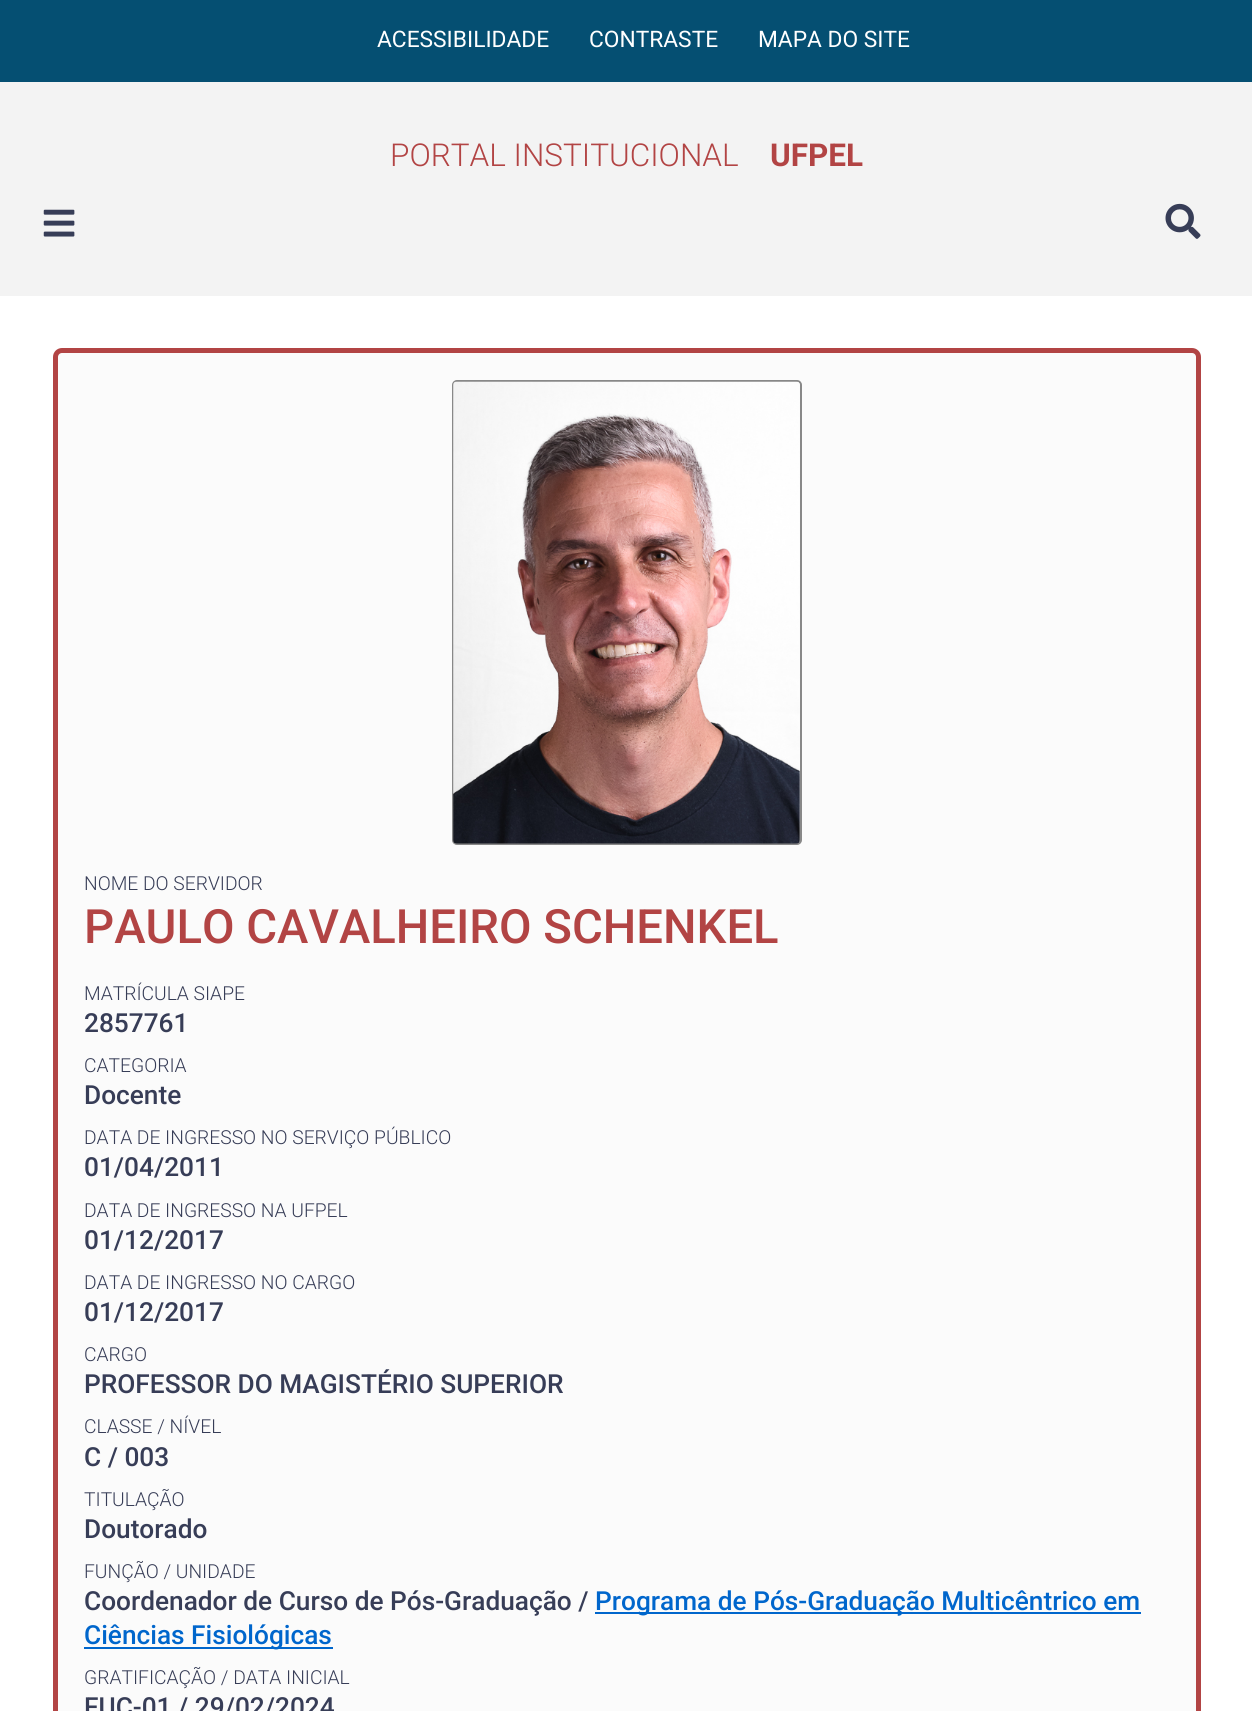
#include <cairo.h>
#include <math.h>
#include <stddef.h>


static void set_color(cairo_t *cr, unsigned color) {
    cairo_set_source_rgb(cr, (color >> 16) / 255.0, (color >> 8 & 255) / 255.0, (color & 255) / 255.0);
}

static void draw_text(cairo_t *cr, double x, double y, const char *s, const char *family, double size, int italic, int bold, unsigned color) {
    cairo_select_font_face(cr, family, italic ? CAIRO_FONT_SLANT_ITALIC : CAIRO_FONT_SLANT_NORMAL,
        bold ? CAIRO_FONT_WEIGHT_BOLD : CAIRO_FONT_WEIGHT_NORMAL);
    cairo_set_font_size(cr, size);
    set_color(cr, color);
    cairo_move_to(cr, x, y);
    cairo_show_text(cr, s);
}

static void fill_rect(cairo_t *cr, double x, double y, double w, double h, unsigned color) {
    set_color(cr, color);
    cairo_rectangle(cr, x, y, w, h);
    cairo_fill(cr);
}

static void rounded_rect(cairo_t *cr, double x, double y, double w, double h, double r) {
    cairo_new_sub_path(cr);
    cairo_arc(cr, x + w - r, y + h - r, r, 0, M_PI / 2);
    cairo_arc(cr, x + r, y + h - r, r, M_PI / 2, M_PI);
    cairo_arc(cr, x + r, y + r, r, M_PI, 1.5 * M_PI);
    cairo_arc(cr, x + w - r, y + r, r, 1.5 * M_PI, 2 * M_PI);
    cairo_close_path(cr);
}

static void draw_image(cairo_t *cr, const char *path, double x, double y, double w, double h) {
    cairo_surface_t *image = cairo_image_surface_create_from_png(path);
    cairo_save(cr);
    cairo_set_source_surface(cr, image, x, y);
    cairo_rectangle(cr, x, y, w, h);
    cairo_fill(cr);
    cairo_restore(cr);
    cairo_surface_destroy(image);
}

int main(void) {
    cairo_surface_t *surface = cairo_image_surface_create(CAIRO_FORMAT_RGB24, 1252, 1711);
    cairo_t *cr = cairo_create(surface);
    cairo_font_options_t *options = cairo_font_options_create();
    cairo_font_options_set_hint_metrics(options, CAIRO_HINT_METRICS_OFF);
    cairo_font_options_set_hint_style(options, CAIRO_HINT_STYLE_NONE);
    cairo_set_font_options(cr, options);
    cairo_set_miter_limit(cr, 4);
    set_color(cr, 0xFFFFFF);
    cairo_paint(cr);
    fill_rect(cr, 0, 0, 1252, 82, 0x054F72);
    draw_text(cr, 377, 47, "ACESSIBILIDADE", "Roboto", 22.75, 0, 0, 0xFFFFFF);
    draw_text(cr, 589, 47, "CONTRASTE", "Roboto", 22.75, 0, 0, 0xFFFFFF);
    draw_text(cr, 758, 47, "MAPA DO SITE", "Roboto", 22.75, 0, 0, 0xFFFFFF);
    fill_rect(cr, 0, 82, 1252, 214, 0xF3F3F3);
    draw_text(cr, 390, 166, "PORTAL INSTITUCIONAL", "Roboto Light", 31.5, 0, 0, 0xB24444);
    draw_text(cr, 770, 166, "UFPEL", "Roboto", 31.5, 0, 1, 0xB24444);
    draw_image(cr, "assets/img1.png", 43, 209, 32, 28);
    draw_image(cr, "assets/img2.png", 1165, 203, 36, 36);
    set_color(cr, 0xFBFBFB);
    rounded_rect(cr, 55.5, 350.5, 1143, 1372, 6.5);
    cairo_fill_preserve(cr);
    set_color(cr, 0xB24444);
    cairo_set_line_width(cr, 5);
    cairo_stroke(cr);
    rounded_rect(cr, 453, 381, 348, 463, 4);
    set_color(cr, 0x888888);
    cairo_set_line_width(cr, 2);
    cairo_stroke(cr);
    draw_image(cr, "assets/img3.png", 453, 381, 347, 463);
    draw_text(cr, 84, 890, "NOME DO SERVIDOR", "Roboto Light", 19.25, 0, 0, 0x373D57);
    draw_text(cr, 84, 943, "PAULO CAVALHEIRO SCHENKEL", "Roboto Medium", 47.25, 0, 0, 0xB24444);
    draw_text(cr, 84, 1000, "MATRÍCULA SIAPE", "Roboto Light", 19.25, 0, 0, 0x373D57);
    draw_text(cr, 84, 1032, "2857761", "Roboto Medium", 26.25, 0, 0, 0x373D57);
    draw_text(cr, 84, 1072, "CATEGORIA", "Roboto Light", 19.25, 0, 0, 0x373D57);
    draw_text(cr, 84, 1104, "Docente", "Roboto Medium", 26.25, 0, 0, 0x373D57);
    draw_text(cr, 84, 1144, "DATA DE INGRESSO NO SERVIÇO PÚBLICO", "Roboto Light", 19.25, 0, 0, 0x373D57);
    draw_text(cr, 84, 1176, "01/04/2011", "Roboto Medium", 26.25, 0, 0, 0x373D57);
    draw_text(cr, 84, 1217, "DATA DE INGRESSO NA UFPEL", "Roboto Light", 19.25, 0, 0, 0x373D57);
    draw_text(cr, 84, 1249, "01/12/2017", "Roboto Medium", 26.25, 0, 0, 0x373D57);
    draw_text(cr, 84, 1289, "DATA DE INGRESSO NO CARGO", "Roboto Light", 19.25, 0, 0, 0x373D57);
    draw_text(cr, 84, 1321, "01/12/2017", "Roboto Medium", 26.25, 0, 0, 0x373D57);
    draw_text(cr, 84, 1361, "CARGO", "Roboto Light", 19.25, 0, 0, 0x373D57);
    draw_text(cr, 84, 1393, "PROFESSOR DO MAGISTÉRIO SUPERIOR", "Roboto Medium", 26.25, 0, 0, 0x373D57);
    draw_text(cr, 84, 1433, "CLASSE / NÍVEL", "Roboto Light", 19.25, 0, 0, 0x373D57);
    draw_text(cr, 84, 1466, "C / 003", "Roboto Medium", 26.25, 0, 0, 0x373D57);
    draw_text(cr, 84, 1506, "TITULAÇÃO", "Roboto Light", 19.25, 0, 0, 0x373D57);
    draw_text(cr, 84, 1538, "Doutorado", "Roboto Medium", 26.25, 0, 0, 0x373D57);
    draw_text(cr, 84, 1578, "FUNÇÃO / UNIDADE", "Roboto Light", 19.25, 0, 0, 0x373D57);
    draw_text(cr, 84, 1610, "Coordenador de Curso de Pós-Graduação /", "Roboto Medium", 26.25, 0, 0, 0x373D57);
    fill_rect(cr, 595, 1612, 546, 2, 0x0066CC);
    draw_text(cr, 595, 1610, "Programa de Pós-Graduação Multicêntrico em", "Roboto Medium", 26.25, 0, 0, 0x0066CC);
    fill_rect(cr, 84, 1647, 249, 2, 0x0066CC);
    draw_text(cr, 84, 1644, "Ciências Fisiológicas", "Roboto Medium", 26.25, 0, 0, 0x0066CC);
    draw_text(cr, 84, 1684, "GRATIFICAÇÃO / DATA INICIAL", "Roboto Light", 19.25, 0, 0, 0x373D57);
    draw_text(cr, 84, 1716, "FUC-01 / 29/02/2024", "Roboto Medium", 26.25, 0, 0, 0x373D57);
    cairo_surface_write_to_png(surface, "output.png");
    cairo_font_options_destroy(options);
    cairo_destroy(cr);
    cairo_surface_destroy(surface);
    return 0;
}
